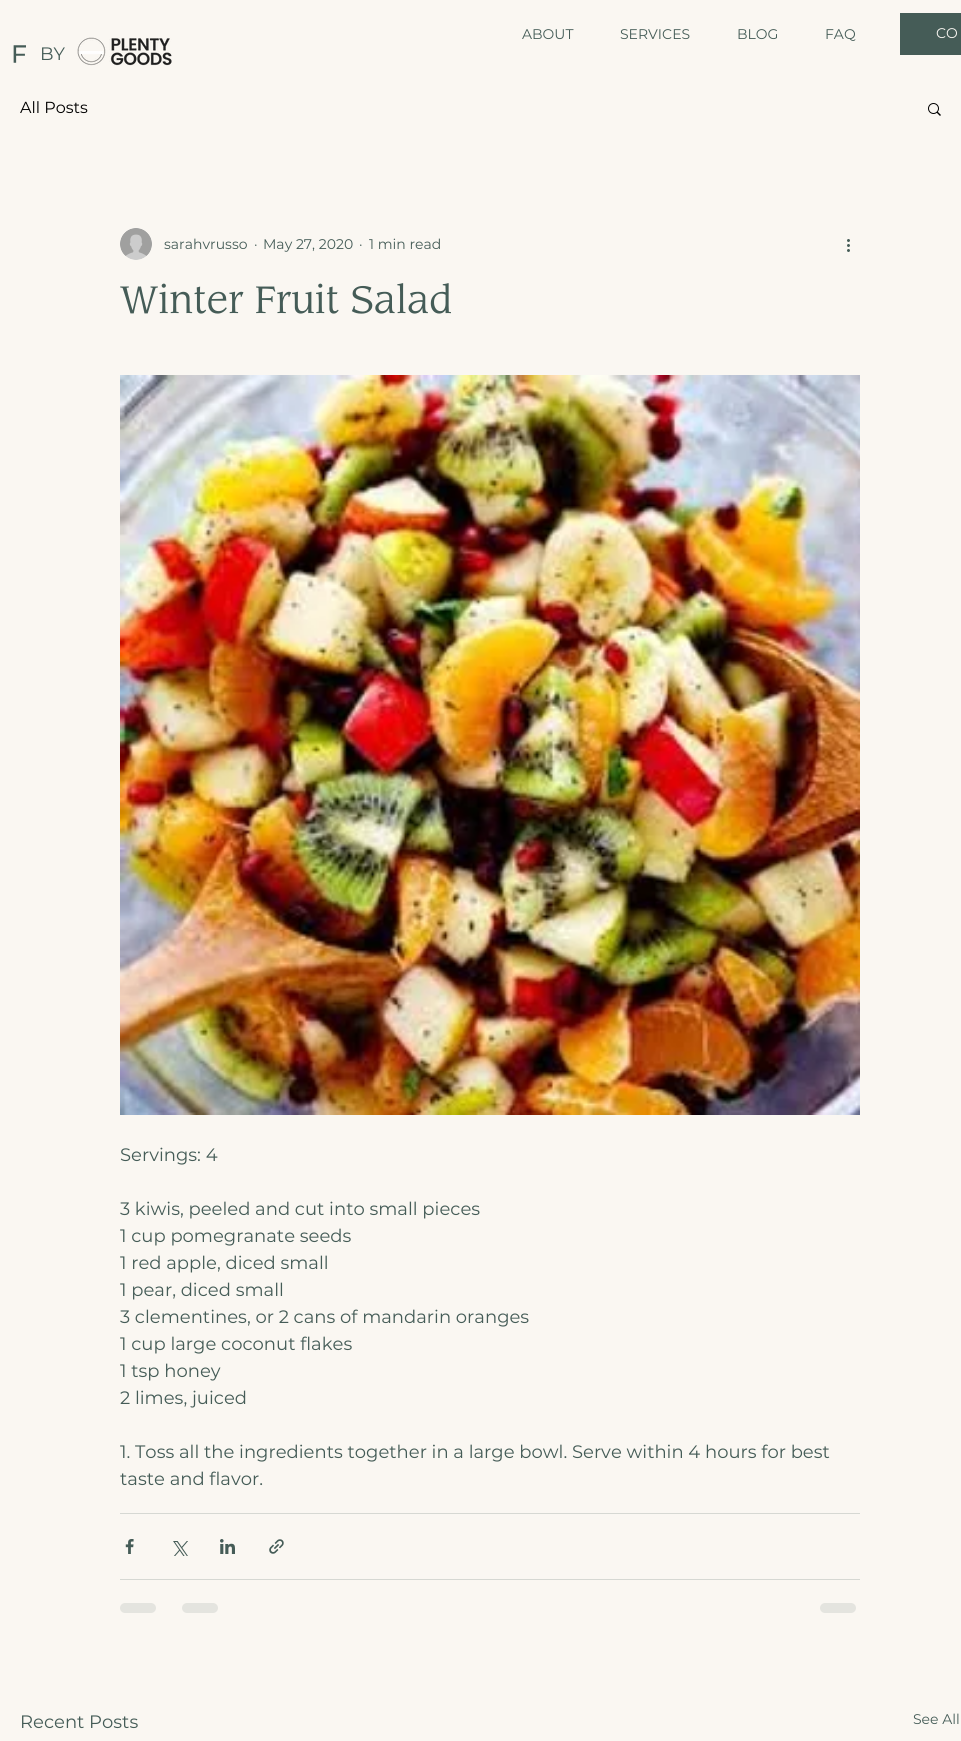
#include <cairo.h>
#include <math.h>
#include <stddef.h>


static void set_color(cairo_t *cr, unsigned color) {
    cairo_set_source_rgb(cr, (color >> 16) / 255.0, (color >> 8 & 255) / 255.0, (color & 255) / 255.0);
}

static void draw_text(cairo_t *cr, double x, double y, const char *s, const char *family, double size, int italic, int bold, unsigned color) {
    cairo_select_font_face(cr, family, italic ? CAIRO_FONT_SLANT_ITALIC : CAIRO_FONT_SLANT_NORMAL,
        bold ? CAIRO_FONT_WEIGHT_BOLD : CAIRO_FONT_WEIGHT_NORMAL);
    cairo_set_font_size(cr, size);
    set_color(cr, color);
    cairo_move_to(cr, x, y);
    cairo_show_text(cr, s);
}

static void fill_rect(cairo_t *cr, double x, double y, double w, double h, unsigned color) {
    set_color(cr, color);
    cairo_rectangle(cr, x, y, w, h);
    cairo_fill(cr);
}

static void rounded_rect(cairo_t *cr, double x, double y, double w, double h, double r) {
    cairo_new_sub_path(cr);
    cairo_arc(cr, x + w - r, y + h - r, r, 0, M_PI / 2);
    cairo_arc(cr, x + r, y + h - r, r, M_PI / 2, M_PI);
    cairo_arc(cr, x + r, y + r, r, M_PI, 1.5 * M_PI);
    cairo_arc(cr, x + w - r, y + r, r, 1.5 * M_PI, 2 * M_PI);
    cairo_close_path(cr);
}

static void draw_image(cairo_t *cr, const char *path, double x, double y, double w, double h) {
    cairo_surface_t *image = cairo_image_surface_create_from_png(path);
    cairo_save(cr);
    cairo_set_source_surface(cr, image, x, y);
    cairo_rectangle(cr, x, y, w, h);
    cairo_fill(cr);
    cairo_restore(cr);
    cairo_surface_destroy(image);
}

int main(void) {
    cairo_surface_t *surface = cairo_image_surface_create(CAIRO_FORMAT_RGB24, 961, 1741);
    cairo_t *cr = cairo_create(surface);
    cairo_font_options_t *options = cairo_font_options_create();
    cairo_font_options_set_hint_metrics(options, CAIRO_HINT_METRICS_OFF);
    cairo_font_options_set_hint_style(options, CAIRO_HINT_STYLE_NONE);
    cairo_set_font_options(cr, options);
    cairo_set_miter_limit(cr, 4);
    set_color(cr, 0xFAF7F2);
    cairo_paint(cr);
    draw_text(cr, 522, 39, "ABOUT", "Montserrat", 14, 0, 0, 0x455C57);
    draw_text(cr, 620, 39, "SERVICES", "Montserrat", 14, 0, 0, 0x455C57);
    draw_text(cr, 737, 39, "BLOG", "Montserrat", 14, 0, 0, 0x455C57);
    draw_text(cr, 825, 39, "FAQ", "Montserrat", 14, 0, 0, 0x455C57);
    fill_rect(cr, 900, 13, 61, 42, 0x455C57);
    draw_text(cr, 936, 38, "CO", "Montserrat", 14, 0, 0, 0xFAF7F2);
    draw_image(cr, "assets/img1.png", 13, 45, 13, 18);
    draw_text(cr, 40, 60, "BY", "Montserrat", 18, 0, 0, 0x455C57);
    draw_image(cr, "assets/img2.png", 77, 37, 95, 29);
    draw_text(cr, 20, 113, "All Posts", "Montserrat", 16, 0, 0, 0x000000);
    draw_image(cr, "assets/img3.png", 928, 103, 13, 13);
    draw_image(cr, "assets/img4.png", 120, 228, 32, 32);
    draw_text(cr, 164, 249, "sarahvrusso", "Montserrat", 14, 0, 0, 0x455C57);
    draw_text(cr, 254, 249, "·", "Montserrat", 14, 0, 0, 0x455C57);
    draw_text(cr, 263, 249, "May 27, 2020", "Montserrat", 14, 0, 0, 0x455C57);
    draw_text(cr, 359, 249, "·", "Montserrat", 14, 0, 0, 0x455C57);
    draw_text(cr, 369, 249, "1 min read", "Montserrat", 14, 0, 0, 0x455C57);
    draw_image(cr, "assets/img5.png", 847, 239, 3, 13);
    draw_text(cr, 120, 313, "Winter Fruit Salad", "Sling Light", 40, 0, 0, 0x455C57);
    draw_image(cr, "assets/img6.png", 120, 375, 740, 740);
    draw_text(cr, 120, 1161, "Servings: 4", "Montserrat", 18, 0, 0, 0x455C57);
    draw_text(cr, 120, 1215, "3 kiwis, peeled and cut into small pieces", "Montserrat", 18, 0, 0, 0x455C57);
    draw_text(cr, 120, 1242, "1 cup pomegranate seeds", "Montserrat", 18, 0, 0, 0x455C57);
    draw_text(cr, 120, 1269, "1 red apple, diced small", "Montserrat", 18, 0, 0, 0x455C57);
    draw_text(cr, 120, 1296, "1 pear, diced small", "Montserrat", 18, 0, 0, 0x455C57);
    draw_text(cr, 120, 1323, "3 clementines, or 2 cans of mandarin oranges", "Montserrat", 18, 0, 0, 0x455C57);
    draw_text(cr, 120, 1350, "1 cup large coconut flakes", "Montserrat", 18, 0, 0, 0x455C57);
    draw_text(cr, 120, 1377, "1 tsp honey", "Montserrat", 18, 0, 0, 0x455C57);
    draw_text(cr, 120, 1404, "2 limes, juiced", "Montserrat", 18, 0, 0, 0x455C57);
    draw_text(cr, 120, 1458, "1. Toss all the ingredients together in a large bowl. Serve within 4 hours for best", "Montserrat", 18, 0, 0, 0x455C57);
    draw_text(cr, 120, 1485, "taste and flavor.", "Montserrat", 18, 0, 0, 0x455C57);
    fill_rect(cr, 120, 1513, 740, 1, 0xD6D8D3);
    draw_image(cr, "assets/img7.png", 125, 1539, 9, 15);
    draw_image(cr, "assets/img8.png", 173, 1541, 15, 15);
    draw_image(cr, "assets/img9.png", 220, 1539, 15, 15);
    draw_image(cr, "assets/img10.png", 269, 1539, 15, 15);
    fill_rect(cr, 120, 1579, 740, 1, 0xD6D8D3);
    set_color(cr, 0xE4E4DF);
    rounded_rect(cr, 120, 1603, 36, 10, 5);
    cairo_fill(cr);
    rounded_rect(cr, 182, 1603, 36, 10, 5);
    cairo_fill(cr);
    rounded_rect(cr, 820, 1603, 36, 10, 5);
    cairo_fill(cr);
    draw_text(cr, 20, 1728, "Recent Posts", "Montserrat", 18, 0, 0, 0x455C57);
    draw_text(cr, 913, 1724, "See All", "Montserrat", 14, 0, 0, 0x455C57);
    cairo_surface_write_to_png(surface, "output.png");
    cairo_font_options_destroy(options);
    cairo_destroy(cr);
    cairo_surface_destroy(surface);
    return 0;
}
